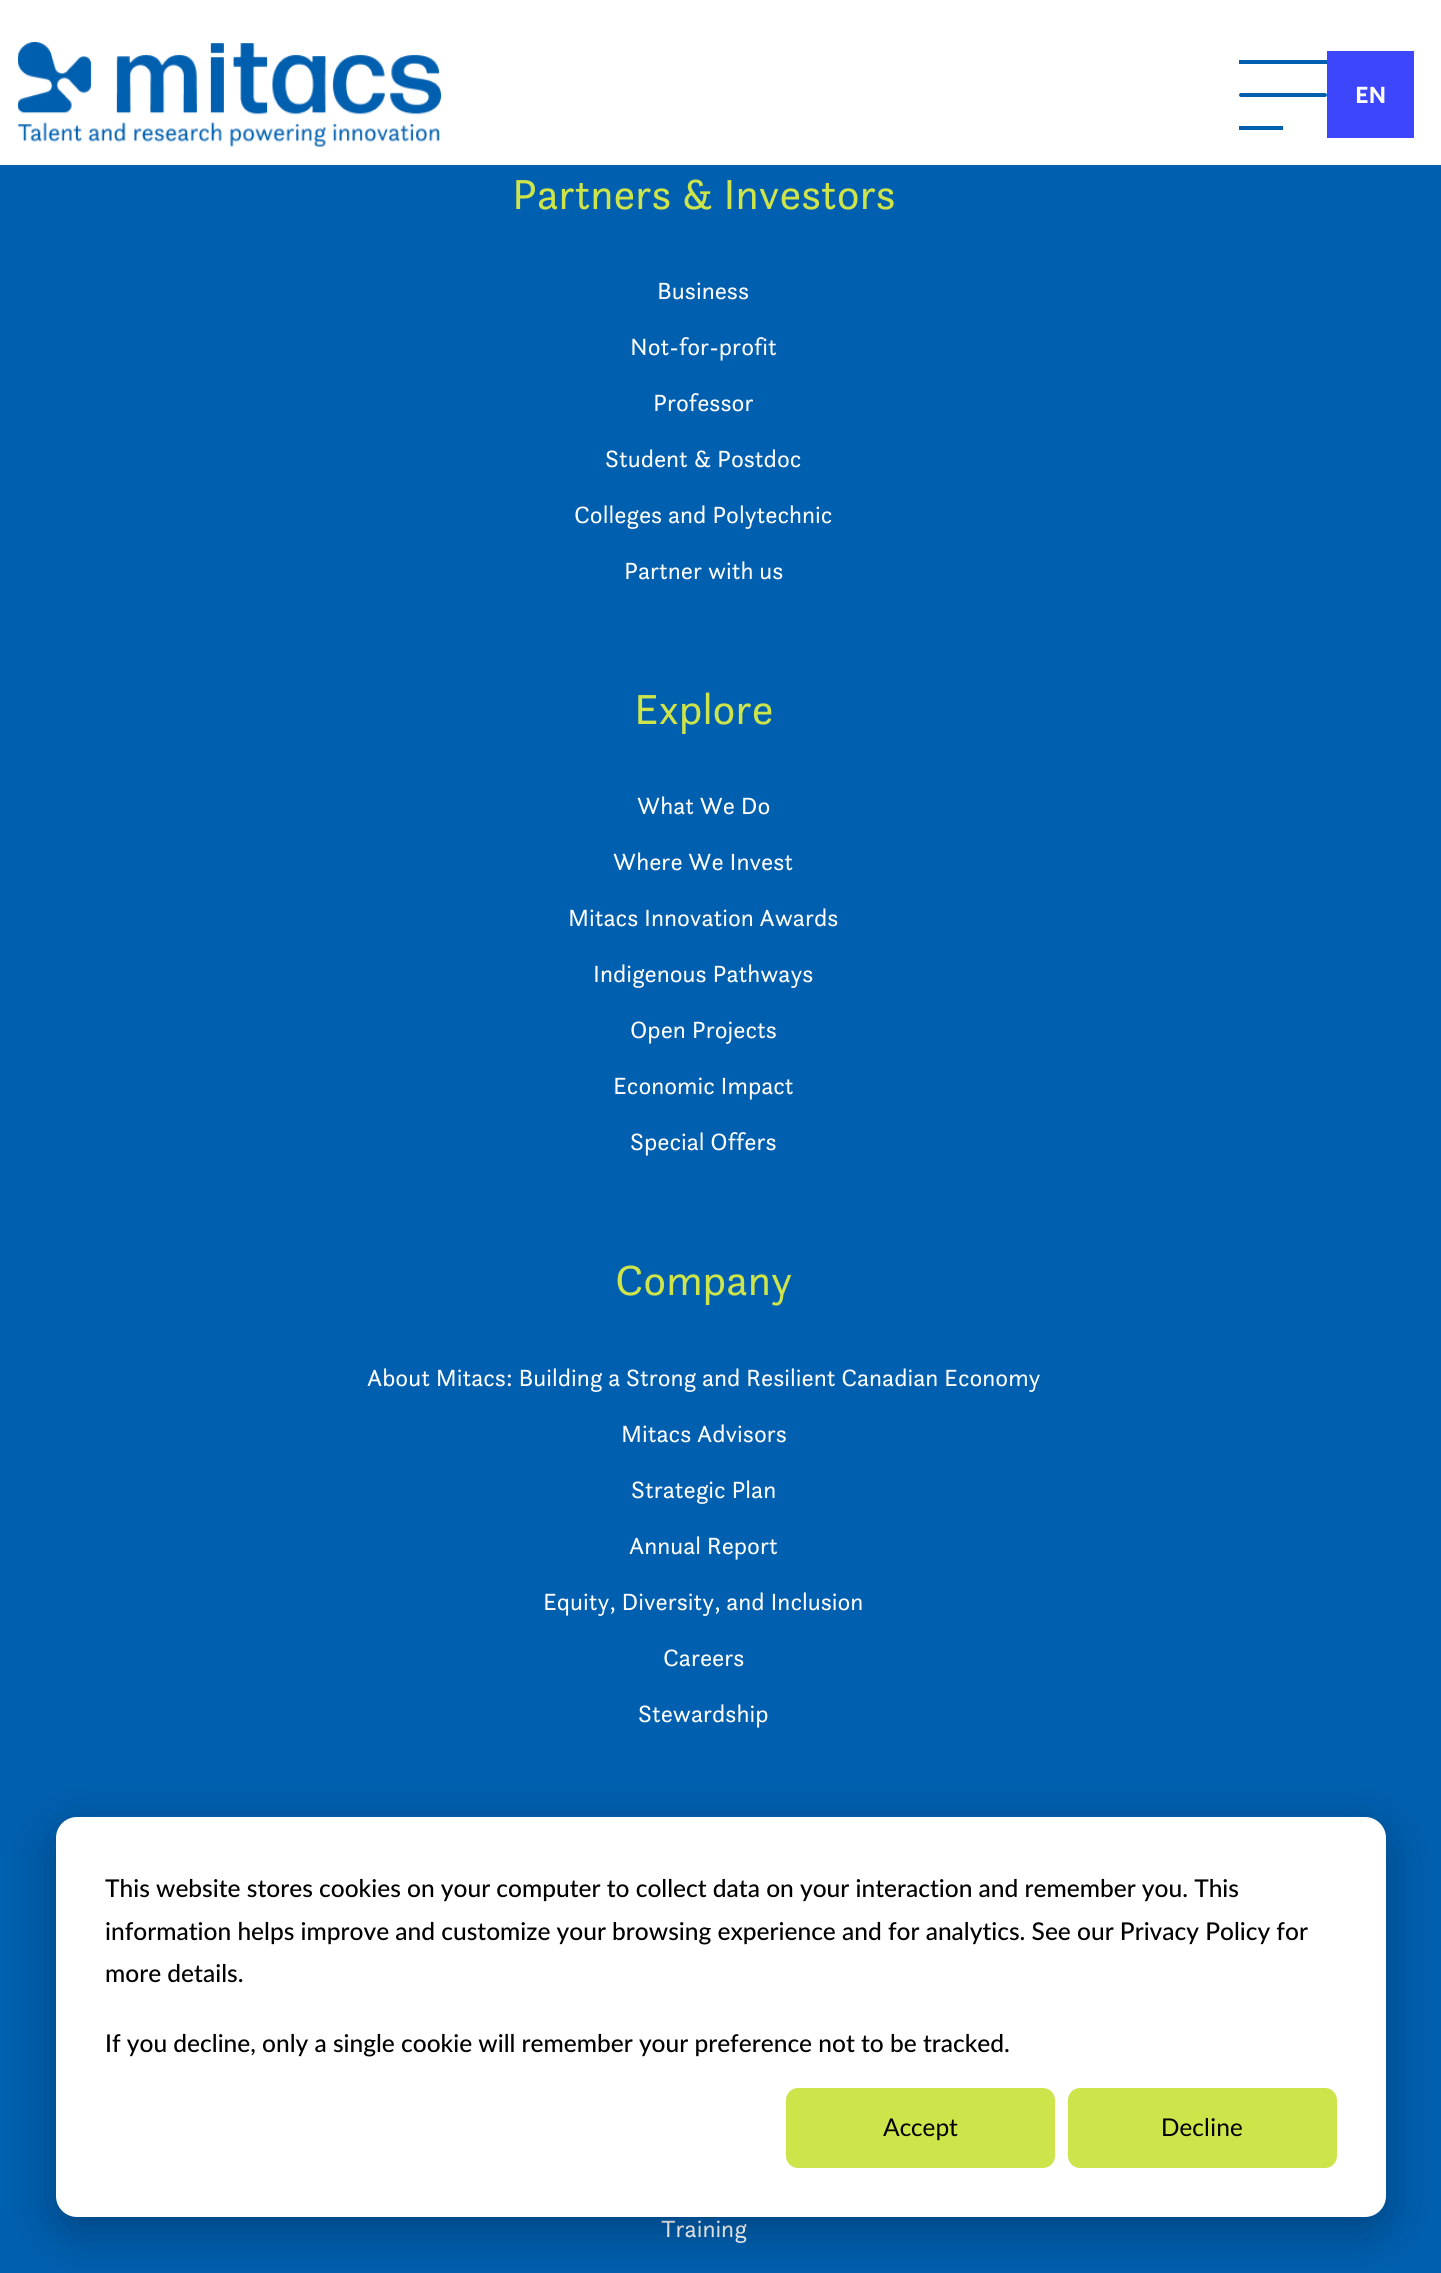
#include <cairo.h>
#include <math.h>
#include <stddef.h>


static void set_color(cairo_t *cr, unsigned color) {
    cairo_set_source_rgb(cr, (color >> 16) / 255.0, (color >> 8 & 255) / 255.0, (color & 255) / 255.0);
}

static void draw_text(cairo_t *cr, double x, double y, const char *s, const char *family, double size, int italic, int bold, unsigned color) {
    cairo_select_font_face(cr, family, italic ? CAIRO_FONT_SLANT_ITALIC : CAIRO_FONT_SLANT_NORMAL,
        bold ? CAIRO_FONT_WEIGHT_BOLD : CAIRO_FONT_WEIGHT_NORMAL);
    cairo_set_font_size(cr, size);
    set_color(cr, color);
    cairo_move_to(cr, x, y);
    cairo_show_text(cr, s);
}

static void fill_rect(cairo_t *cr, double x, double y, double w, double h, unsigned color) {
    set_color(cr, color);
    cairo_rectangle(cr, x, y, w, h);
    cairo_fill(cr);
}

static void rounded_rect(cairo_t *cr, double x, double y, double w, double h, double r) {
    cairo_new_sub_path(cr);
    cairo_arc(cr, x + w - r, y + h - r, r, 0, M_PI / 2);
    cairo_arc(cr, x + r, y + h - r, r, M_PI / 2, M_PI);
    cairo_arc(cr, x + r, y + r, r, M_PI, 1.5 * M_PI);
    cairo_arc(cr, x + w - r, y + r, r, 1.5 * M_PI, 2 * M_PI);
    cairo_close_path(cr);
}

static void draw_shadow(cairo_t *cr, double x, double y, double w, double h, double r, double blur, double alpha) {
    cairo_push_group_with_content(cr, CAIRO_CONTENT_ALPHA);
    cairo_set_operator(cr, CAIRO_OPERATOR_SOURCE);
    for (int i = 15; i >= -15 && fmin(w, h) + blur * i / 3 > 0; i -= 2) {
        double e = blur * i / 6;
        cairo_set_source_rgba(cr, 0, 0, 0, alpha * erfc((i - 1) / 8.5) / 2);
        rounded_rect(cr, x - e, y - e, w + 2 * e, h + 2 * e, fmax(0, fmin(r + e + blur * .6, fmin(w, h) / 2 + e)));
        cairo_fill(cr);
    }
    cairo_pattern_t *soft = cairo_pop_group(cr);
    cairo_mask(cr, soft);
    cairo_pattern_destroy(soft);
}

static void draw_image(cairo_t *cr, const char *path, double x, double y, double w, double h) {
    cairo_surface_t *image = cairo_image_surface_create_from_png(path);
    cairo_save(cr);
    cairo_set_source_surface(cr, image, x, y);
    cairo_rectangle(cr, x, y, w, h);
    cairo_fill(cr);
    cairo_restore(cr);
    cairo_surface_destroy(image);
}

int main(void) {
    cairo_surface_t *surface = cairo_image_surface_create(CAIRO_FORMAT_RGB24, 1441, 2273);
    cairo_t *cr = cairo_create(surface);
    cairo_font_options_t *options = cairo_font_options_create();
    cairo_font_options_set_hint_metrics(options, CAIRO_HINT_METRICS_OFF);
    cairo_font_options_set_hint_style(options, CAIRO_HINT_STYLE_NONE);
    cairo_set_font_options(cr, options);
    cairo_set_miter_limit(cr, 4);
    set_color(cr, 0x005FAF);
    cairo_paint(cr);
    fill_rect(cr, 0, 0, 1441, 165, 0xFFFFFF);
    draw_image(cr, "assets/img1.png", 18, 42, 424, 105);
    fill_rect(cr, 1239, 60, 88, 4, 0x005FAF);
    rounded_rect(cr, 1239, 93, 88, 4, 2);
    cairo_fill(cr);
    fill_rect(cr, 1239, 126, 44, 4, 0x005FAF);
    fill_rect(cr, 1327, 51, 87, 87, 0x3D46FB);
    draw_text(cr, 1355, 103, "EN", "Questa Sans", 24.5, 0, 1, 0xFFFFFF);
    draw_text(cr, 512, 209, "Partners & Investors", "Questa Sans", 43.75, 0, 0, 0xCDE44B);
    draw_text(cr, 657, 299, "Business", "Questa Sans", 24.5, 0, 0, 0xFFFFFF);
    draw_text(cr, 630, 355, "Not-for-profit", "Questa Sans", 24.5, 0, 0, 0xFFFFFF);
    draw_text(cr, 653, 411, "Professor", "Questa Sans", 24.5, 0, 0, 0xFFFFFF);
    draw_text(cr, 605, 467, "Student & Postdoc", "Questa Sans", 24.5, 0, 0, 0xFFFFFF);
    draw_text(cr, 574, 523, "Colleges and Polytechnic", "Questa Sans", 24.5, 0, 0, 0xFFFFFF);
    draw_text(cr, 624, 579, "Partner with us", "Questa Sans", 24.5, 0, 0, 0xFFFFFF);
    draw_text(cr, 634, 724, "Explore", "Questa Sans", 43.75, 0, 0, 0xCDE44B);
    draw_text(cr, 637, 814, "What We Do", "Questa Sans", 24.5, 0, 0, 0xFFFFFF);
    draw_text(cr, 613, 870, "Where We Invest", "Questa Sans", 24.5, 0, 0, 0xFFFFFF);
    draw_text(cr, 568, 926, "Mitacs Innovation Awards", "Questa Sans", 24.5, 0, 0, 0xFFFFFF);
    draw_text(cr, 593, 982, "Indigenous Pathways", "Questa Sans", 24.5, 0, 0, 0xFFFFFF);
    draw_text(cr, 630, 1038, "Open Projects", "Questa Sans", 24.5, 0, 0, 0xFFFFFF);
    draw_text(cr, 613, 1094, "Economic Impact", "Questa Sans", 24.5, 0, 0, 0xFFFFFF);
    draw_text(cr, 630, 1150, "Special Offers", "Questa Sans", 24.5, 0, 0, 0xFFFFFF);
    draw_text(cr, 615, 1295, "Company", "Questa Sans", 43.75, 0, 0, 0xCDE44B);
    draw_text(cr, 367, 1386, "About Mitacs: Building a Strong and Resilient Canadian Economy", "Questa Sans", 24.5, 0, 0, 0xFFFFFF);
    draw_text(cr, 621, 1442, "Mitacs Advisors", "Questa Sans", 24.5, 0, 0, 0xFFFFFF);
    draw_text(cr, 631, 1498, "Strategic Plan", "Questa Sans", 24.5, 0, 0, 0xFFFFFF);
    draw_text(cr, 629, 1554, "Annual Report", "Questa Sans", 24.5, 0, 0, 0xFFFFFF);
    draw_text(cr, 543, 1610, "Equity, Diversity, and Inclusion", "Questa Sans", 24.5, 0, 0, 0xFFFFFF);
    draw_text(cr, 663, 1666, "Careers", "Questa Sans", 24.5, 0, 0, 0xFFFFFF);
    draw_text(cr, 638, 1722, "Stewardship", "Questa Sans", 24.5, 0, 0, 0xFFFFFF);
    draw_text(cr, 661, 2237, "Training", "Questa Sans", 24.5, 0, 0, 0xFFFFFF);
    set_color(cr, 0x000000);
    draw_shadow(cr, 56, 1831, 1330, 400, 21, 24.5, 0.28);
    set_color(cr, 0xFFFFFF);
    rounded_rect(cr, 56, 1817, 1330, 400, 21);
    cairo_fill(cr);
    draw_text(cr, 105, 1897, "This website stores cookies on your computer to collect data on your interaction and remember you. This", "Lato Medium", 24.5, 0, 0, 0x000000);
    draw_text(cr, 105, 1940, "information helps improve and customize your browsing experience and for analytics. See our Privacy Policy for", "Lato Medium", 24.5, 0, 0, 0x000000);
    draw_text(cr, 105, 1982, "more details.", "Lato Medium", 24.5, 0, 0, 0x000000);
    draw_text(cr, 105, 2052, "If you decline, only a single cookie will remember your preference not to be tracked.", "Lato Medium", 24.5, 0, 0, 0x000000);
    set_color(cr, 0xCDE44B);
    rounded_rect(cr, 787, 2089, 267, 78, 11);
    cairo_fill_preserve(cr);
    cairo_stroke(cr);
    draw_text(cr, 883, 2136, "Accept", "Lato", 24.5, 0, 0, 0x000000);
    set_color(cr, 0xCDE44B);
    rounded_rect(cr, 1069, 2089, 267, 78, 11);
    cairo_fill_preserve(cr);
    cairo_stroke(cr);
    draw_text(cr, 1161, 2136, "Decline", "Lato", 24.5, 0, 0, 0x000000);
    cairo_surface_write_to_png(surface, "output.png");
    cairo_font_options_destroy(options);
    cairo_destroy(cr);
    cairo_surface_destroy(surface);
    return 0;
}
